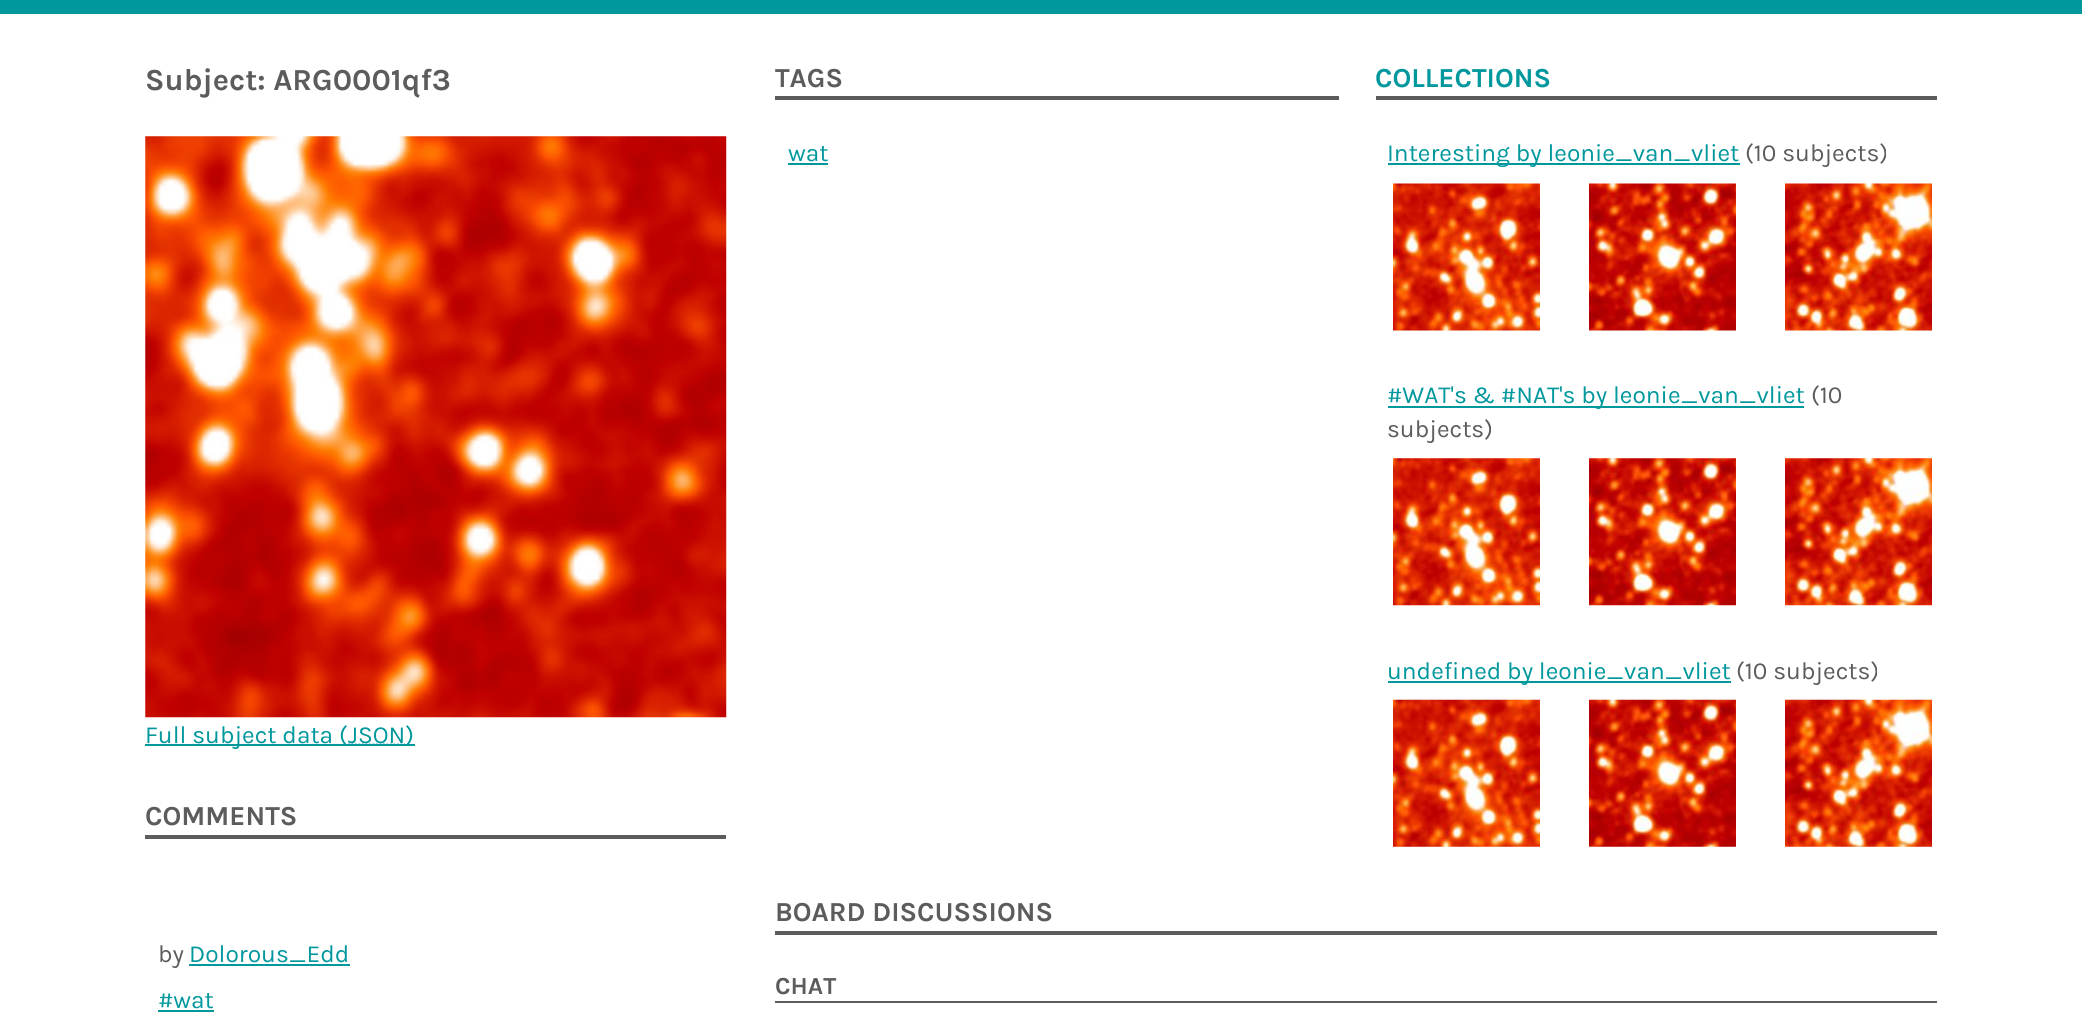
#include <cairo.h>
#include <math.h>
#include <stddef.h>


static void set_color(cairo_t *cr, unsigned color) {
    cairo_set_source_rgb(cr, (color >> 16) / 255.0, (color >> 8 & 255) / 255.0, (color & 255) / 255.0);
}

static void draw_text(cairo_t *cr, double x, double y, const char *s, const char *family, double size, int italic, int bold, unsigned color) {
    cairo_select_font_face(cr, family, italic ? CAIRO_FONT_SLANT_ITALIC : CAIRO_FONT_SLANT_NORMAL,
        bold ? CAIRO_FONT_WEIGHT_BOLD : CAIRO_FONT_WEIGHT_NORMAL);
    cairo_set_font_size(cr, size);
    set_color(cr, color);
    cairo_move_to(cr, x, y);
    cairo_show_text(cr, s);
}

static void fill_rect(cairo_t *cr, double x, double y, double w, double h, unsigned color) {
    set_color(cr, color);
    cairo_rectangle(cr, x, y, w, h);
    cairo_fill(cr);
}

static void draw_image(cairo_t *cr, const char *path, double x, double y, double w, double h) {
    cairo_surface_t *image = cairo_image_surface_create_from_png(path);
    cairo_save(cr);
    cairo_set_source_surface(cr, image, x, y);
    cairo_rectangle(cr, x, y, w, h);
    cairo_fill(cr);
    cairo_restore(cr);
    cairo_surface_destroy(image);
}

int main(void) {
    cairo_surface_t *surface = cairo_image_surface_create(CAIRO_FORMAT_RGB24, 2082, 1026);
    cairo_t *cr = cairo_create(surface);
    cairo_font_options_t *options = cairo_font_options_create();
    cairo_font_options_set_hint_metrics(options, CAIRO_HINT_METRICS_OFF);
    cairo_font_options_set_hint_style(options, CAIRO_HINT_STYLE_NONE);
    cairo_set_font_options(cr, options);
    cairo_set_miter_limit(cr, 4);
    set_color(cr, 0xFFFFFF);
    cairo_paint(cr);
    fill_rect(cr, 0, 0, 2082, 14, 0x00979D);
    draw_text(cr, 145, 90, "Subject: ARG0001qf3", "Karla", 30.6, 0, 1, 0x5C5C5C);
    draw_image(cr, "assets/img1.png", 145, 136, 582, 582);
    fill_rect(cr, 145, 744, 203, 2, 0x00979D);
    draw_text(cr, 145, 743, "Full subject data (", "Karla", 24.5, 0, 0, 0x00979D);
    cairo_new_path(cr);
    cairo_move_to(cr, 348, 744.5);
    cairo_line_to(cr, 405, 744.5);
    cairo_set_line_width(cr, 1.8);
    cairo_set_dash(cr, (double[]){1.75, 1.75}, 2, 0);
    cairo_stroke(cr);
    fill_rect(cr, 348, 744, 67, 2, 0x00979D);
    draw_text(cr, 348, 743, "JSON)", "Karla", 24.5, 0, 0, 0x00979D);
    fill_rect(cr, 145, 835, 581, 4, 0x5C5C5C);
    draw_text(cr, 145, 825, "COMMENTS", "Karla", 27.5, 0, 1, 0x5C5C5C);
    draw_text(cr, 158, 962, "by", "Karla", 24.5, 0, 0, 0x5C5C5C);
    draw_text(cr, 189, 962, "Dolorous_Edd", "Karla", 24.5, 0, 0, 0x00979D);
    fill_rect(cr, 189, 964, 161, 2, 0x00979D);
    draw_text(cr, 158, 1008, "#wat", "Karla", 24.5, 0, 0, 0x00979D);
    fill_rect(cr, 158, 1010, 56, 2, 0x00979D);
    fill_rect(cr, 775, 96, 564, 4, 0x5C5C5C);
    draw_text(cr, 775, 87, "TAGS", "Karla", 27.5, 0, 1, 0x5C5C5C);
    draw_text(cr, 788, 161, "wat", "Karla", 24.5, 0, 0, 0x00979D);
    fill_rect(cr, 788, 163, 40, 2, 0x00979D);
    fill_rect(cr, 1376, 96, 561, 4, 0x5C5C5C);
    draw_text(cr, 1375, 87, "COLLECTIONS", "Karla", 27.5, 0, 1, 0x00979D);
    fill_rect(cr, 1388, 163, 352, 2, 0x00979D);
    draw_text(cr, 1387, 161, "Interesting by leonie_van_vliet", "Karla", 24.5, 0, 0, 0x00979D);
    draw_text(cr, 1745, 161, "(10 subjects)", "Karla", 24.5, 0, 0, 0x5C5C5C);
    draw_image(cr, "assets/img2.png", 1393, 183, 147, 148);
    draw_image(cr, "assets/img3.png", 1589, 183, 147, 148);
    draw_image(cr, "assets/img4.png", 1785, 183, 147, 148);
    fill_rect(cr, 1388, 406, 416, 2, 0x00979D);
    draw_text(cr, 1387, 403, "#WAT's & #NAT's by leonie_van_vliet", "Karla", 24.5, 0, 0, 0x00979D);
    draw_text(cr, 1811, 403, "(10", "Karla", 24.5, 0, 0, 0x5C5C5C);
    draw_text(cr, 1387, 437, "subjects)", "Karla", 24.5, 0, 0, 0x5C5C5C);
    draw_image(cr, "assets/img5.png", 1393, 458, 147, 148);
    draw_image(cr, "assets/img6.png", 1589, 458, 147, 148);
    draw_image(cr, "assets/img7.png", 1785, 458, 147, 148);
    fill_rect(cr, 1388, 681, 343, 2, 0x00979D);
    draw_text(cr, 1387, 679, "undefined by leonie_van_vliet", "Karla", 24.5, 0, 0, 0x00979D);
    draw_text(cr, 1736, 679, "(10 subjects)", "Karla", 24.5, 0, 0, 0x5C5C5C);
    draw_image(cr, "assets/img8.png", 1393, 699, 147, 148);
    draw_image(cr, "assets/img9.png", 1589, 699, 147, 148);
    draw_image(cr, "assets/img10.png", 1785, 699, 147, 148);
    fill_rect(cr, 775, 931, 1162, 4, 0x5C5C5C);
    draw_text(cr, 775, 921, "BOARD DISCUSSIONS", "Karla", 27.5, 0, 1, 0x5C5C5C);
    fill_rect(cr, 775, 1001, 1162, 2, 0x5C5C5C);
    draw_text(cr, 775, 994, "CHAT", "Karla", 24.5, 0, 1, 0x5C5C5C);
    cairo_surface_write_to_png(surface, "output.png");
    cairo_font_options_destroy(options);
    cairo_destroy(cr);
    cairo_surface_destroy(surface);
    return 0;
}
